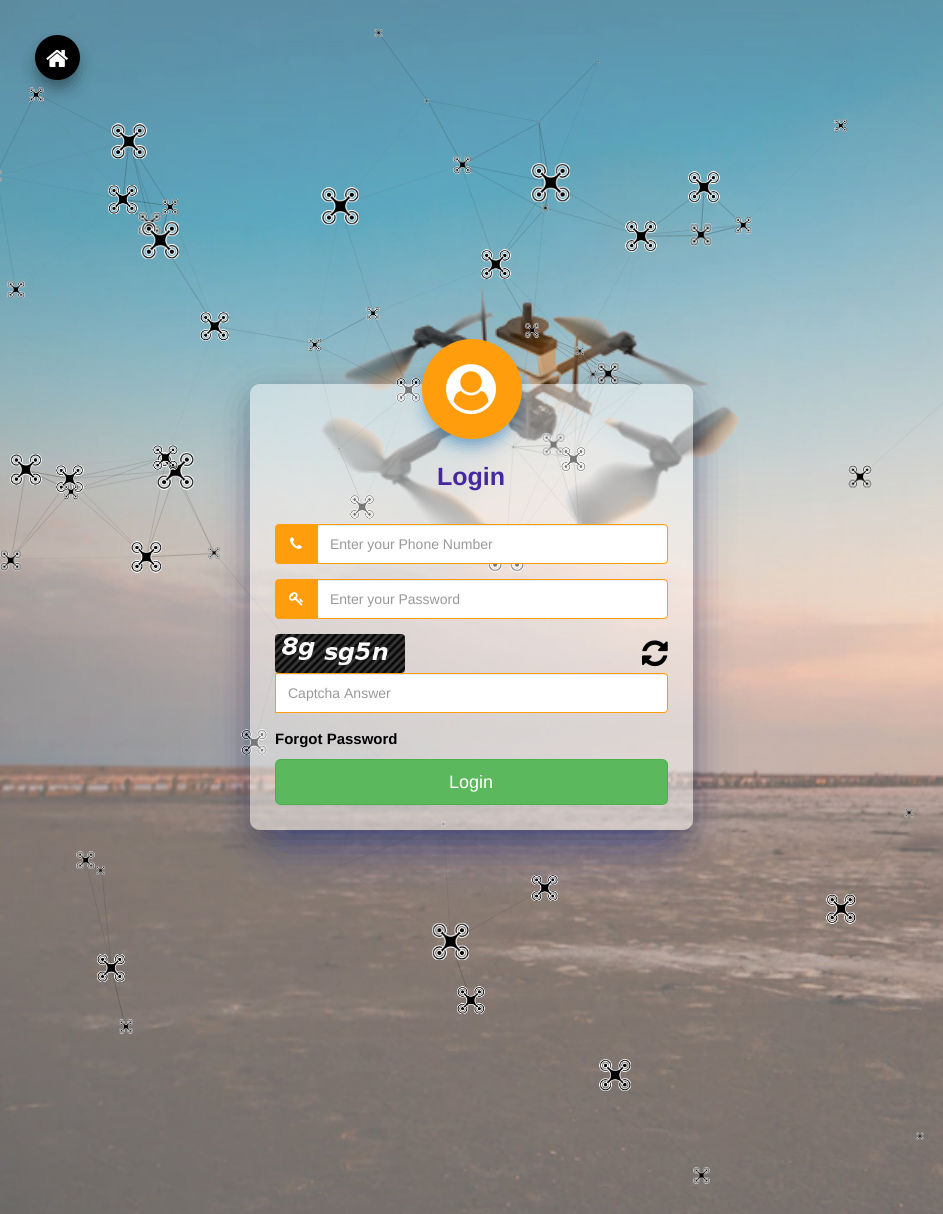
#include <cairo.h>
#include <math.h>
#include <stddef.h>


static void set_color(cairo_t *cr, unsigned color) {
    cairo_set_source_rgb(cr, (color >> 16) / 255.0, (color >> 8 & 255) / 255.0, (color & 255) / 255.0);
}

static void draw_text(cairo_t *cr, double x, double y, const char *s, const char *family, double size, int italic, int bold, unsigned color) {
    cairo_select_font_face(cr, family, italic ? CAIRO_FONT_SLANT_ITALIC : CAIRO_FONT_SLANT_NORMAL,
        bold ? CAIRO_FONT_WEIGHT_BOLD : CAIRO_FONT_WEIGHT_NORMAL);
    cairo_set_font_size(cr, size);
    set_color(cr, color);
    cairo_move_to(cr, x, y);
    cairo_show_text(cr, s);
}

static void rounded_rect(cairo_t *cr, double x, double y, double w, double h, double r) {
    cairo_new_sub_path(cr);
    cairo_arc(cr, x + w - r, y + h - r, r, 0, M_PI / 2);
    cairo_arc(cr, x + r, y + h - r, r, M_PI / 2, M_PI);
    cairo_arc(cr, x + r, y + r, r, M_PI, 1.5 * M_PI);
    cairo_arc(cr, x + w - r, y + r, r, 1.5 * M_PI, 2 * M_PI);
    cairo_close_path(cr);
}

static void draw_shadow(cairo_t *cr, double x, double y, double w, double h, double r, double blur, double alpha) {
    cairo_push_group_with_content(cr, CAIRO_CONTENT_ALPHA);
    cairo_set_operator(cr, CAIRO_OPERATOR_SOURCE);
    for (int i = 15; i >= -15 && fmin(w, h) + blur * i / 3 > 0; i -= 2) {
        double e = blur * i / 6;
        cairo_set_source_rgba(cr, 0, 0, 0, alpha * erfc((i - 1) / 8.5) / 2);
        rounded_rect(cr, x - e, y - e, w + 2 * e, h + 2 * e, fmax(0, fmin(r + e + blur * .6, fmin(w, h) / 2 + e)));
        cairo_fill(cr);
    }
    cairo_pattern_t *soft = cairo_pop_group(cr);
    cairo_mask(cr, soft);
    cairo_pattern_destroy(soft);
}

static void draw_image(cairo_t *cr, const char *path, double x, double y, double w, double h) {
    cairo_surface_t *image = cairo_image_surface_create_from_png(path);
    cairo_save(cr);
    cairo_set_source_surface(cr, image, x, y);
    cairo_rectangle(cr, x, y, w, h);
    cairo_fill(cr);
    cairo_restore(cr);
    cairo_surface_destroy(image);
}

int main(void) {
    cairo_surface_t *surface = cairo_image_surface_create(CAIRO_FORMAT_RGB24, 943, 1214);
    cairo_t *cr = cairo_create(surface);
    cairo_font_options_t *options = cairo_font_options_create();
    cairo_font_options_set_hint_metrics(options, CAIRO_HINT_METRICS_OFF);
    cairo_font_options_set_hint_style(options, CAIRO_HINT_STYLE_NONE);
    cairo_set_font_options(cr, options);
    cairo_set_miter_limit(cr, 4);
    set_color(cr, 0xFFFFFF);
    cairo_paint(cr);
    draw_image(cr, "assets/img3.png", 0, 0, 943, 1214);
    draw_image(cr, "assets/img2.png", 0, 29, 943, 1155);
    set_color(cr, 0x000000);
    draw_shadow(cr, 40, 50, 35, 35, 17.5, 10, 0.51);
    set_color(cr, 0x000000);
    cairo_arc(cr, 57.5, 57.5, 22.5, 0, 2 * M_PI);
    cairo_fill(cr);
    draw_image(cr, "assets/img1.png", 46, 49, 22, 18);
    cairo_save(cr);
    cairo_set_fill_rule(cr, CAIRO_FILL_RULE_EVEN_ODD);
    cairo_new_path(cr);
    cairo_move_to(cr, 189, 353);
    cairo_line_to(cr, 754, 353);
    cairo_line_to(cr, 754, 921);
    cairo_line_to(cr, 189, 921);
    cairo_close_path(cr);
    cairo_move_to(cr, 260, 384);
    cairo_line_to(cr, 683, 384);
    cairo_curve_to(cr, 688.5, 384, 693, 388.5, 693, 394);
    cairo_line_to(cr, 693, 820);
    cairo_curve_to(cr, 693, 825.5, 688.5, 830, 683, 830);
    cairo_line_to(cr, 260, 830);
    cairo_curve_to(cr, 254.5, 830, 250, 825.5, 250, 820);
    cairo_line_to(cr, 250, 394);
    cairo_curve_to(cr, 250, 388.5, 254.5, 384, 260, 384);
    cairo_close_path(cr);
    cairo_clip(cr);
    set_color(cr, 0x3F51B5);
    draw_shadow(cr, 280, 444, 383, 386, 0, 30, 1);
    cairo_restore(cr);
    cairo_save(cr);
    cairo_set_fill_rule(cr, CAIRO_FILL_RULE_EVEN_ODD);
    cairo_new_path(cr);
    cairo_move_to(cr, 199, 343);
    cairo_line_to(cr, 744, 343);
    cairo_line_to(cr, 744, 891);
    cairo_line_to(cr, 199, 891);
    cairo_close_path(cr);
    cairo_move_to(cr, 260, 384);
    cairo_line_to(cr, 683, 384);
    cairo_curve_to(cr, 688.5, 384, 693, 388.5, 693, 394);
    cairo_line_to(cr, 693, 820);
    cairo_curve_to(cr, 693, 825.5, 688.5, 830, 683, 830);
    cairo_line_to(cr, 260, 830);
    cairo_curve_to(cr, 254.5, 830, 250, 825.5, 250, 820);
    cairo_line_to(cr, 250, 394);
    cairo_curve_to(cr, 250, 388.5, 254.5, 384, 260, 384);
    cairo_close_path(cr);
    cairo_clip(cr);
    set_color(cr, 0x000000);
    draw_shadow(cr, 260, 404, 423, 426, 0, 20, 0.45);
    cairo_restore(cr);
    cairo_set_source_rgba(cr, 1, 1, 1, 0.47);
    rounded_rect(cr, 250, 384, 443, 446, 10);
    cairo_fill(cr);
    set_color(cr, 0x005EA7);
    draw_shadow(cr, 427, 354, 90, 90, 45, 9, 0.54);
    set_color(cr, 0xFF9D0C);
    cairo_arc(cr, 472, 389, 50, 0, 2 * M_PI);
    cairo_fill(cr);
    draw_image(cr, "assets/img4.png", 446, 364, 50, 51);
    draw_text(cr, 437, 485, "Login", "Liberation Sans", 25, 0, 1, 0x4527A0);
    set_color(cr, 0xFF9D0C);
    cairo_new_path(cr);
    cairo_move_to(cr, 279, 524.5);
    cairo_line_to(cr, 316.5, 524.5);
    cairo_line_to(cr, 316.5, 563.5);
    cairo_line_to(cr, 279, 563.5);
    cairo_curve_to(cr, 277, 563.5, 275.5, 562, 275.5, 560);
    cairo_line_to(cr, 275.5, 528);
    cairo_curve_to(cr, 275.5, 526, 277, 524.5, 279, 524.5);
    cairo_close_path(cr);
    cairo_fill_preserve(cr);
    cairo_set_line_width(cr, 1);
    cairo_stroke(cr);
    draw_image(cr, "assets/img5.png", 290, 537, 12, 12);
    set_color(cr, 0xFFFFFF);
    cairo_new_path(cr);
    cairo_move_to(cr, 317, 524);
    cairo_line_to(cr, 664, 524);
    cairo_curve_to(cr, 666, 524, 668, 526, 668, 528);
    cairo_line_to(cr, 668, 560);
    cairo_curve_to(cr, 668, 562, 666, 564, 664, 564);
    cairo_line_to(cr, 317, 564);
    cairo_close_path(cr);
    cairo_fill(cr);
    set_color(cr, 0xECECEC);
    cairo_new_path(cr);
    cairo_move_to(cr, 318, 526);
    cairo_line_to(cr, 664, 526);
    cairo_curve_to(cr, 666, 526, 667, 527, 667, 529);
    cairo_line_to(cr, 667, 528);
    cairo_curve_to(cr, 667, 526, 666, 525, 664, 525);
    cairo_line_to(cr, 318, 525);
    cairo_close_path(cr);
    cairo_fill(cr);
    cairo_new_path(cr);
    cairo_move_to(cr, 317.5, 524.5);
    cairo_line_to(cr, 664, 524.5);
    cairo_curve_to(cr, 666, 524.5, 667.5, 526, 667.5, 528);
    cairo_line_to(cr, 667.5, 560);
    cairo_curve_to(cr, 667.5, 562, 666, 563.5, 664, 563.5);
    cairo_line_to(cr, 317.5, 563.5);
    cairo_close_path(cr);
    set_color(cr, 0xFF9D0C);
    cairo_stroke(cr);
    draw_text(cr, 330, 549, "Enter your Phone Number", "Liberation Sans", 14, 0, 0, 0x999999);
    set_color(cr, 0xFF9D0C);
    cairo_new_path(cr);
    cairo_move_to(cr, 279, 579.5);
    cairo_line_to(cr, 316.5, 579.5);
    cairo_line_to(cr, 316.5, 618.5);
    cairo_line_to(cr, 279, 618.5);
    cairo_curve_to(cr, 277, 618.5, 275.5, 617, 275.5, 615);
    cairo_line_to(cr, 275.5, 583);
    cairo_curve_to(cr, 275.5, 581, 277, 579.5, 279, 579.5);
    cairo_close_path(cr);
    cairo_fill_preserve(cr);
    cairo_stroke(cr);
    draw_image(cr, "assets/img6.png", 289, 592, 14, 14);
    set_color(cr, 0xFFFFFF);
    cairo_new_path(cr);
    cairo_move_to(cr, 317, 579);
    cairo_line_to(cr, 664, 579);
    cairo_curve_to(cr, 666, 579, 668, 581, 668, 583);
    cairo_line_to(cr, 668, 615);
    cairo_curve_to(cr, 668, 617, 666, 619, 664, 619);
    cairo_line_to(cr, 317, 619);
    cairo_close_path(cr);
    cairo_fill(cr);
    set_color(cr, 0xECECEC);
    cairo_new_path(cr);
    cairo_move_to(cr, 318, 581);
    cairo_line_to(cr, 664, 581);
    cairo_curve_to(cr, 666, 581, 667, 582, 667, 584);
    cairo_line_to(cr, 667, 583);
    cairo_curve_to(cr, 667, 581, 666, 580, 664, 580);
    cairo_line_to(cr, 318, 580);
    cairo_close_path(cr);
    cairo_fill(cr);
    cairo_new_path(cr);
    cairo_move_to(cr, 317.5, 579.5);
    cairo_line_to(cr, 664, 579.5);
    cairo_curve_to(cr, 666, 579.5, 667.5, 581, 667.5, 583);
    cairo_line_to(cr, 667.5, 615);
    cairo_curve_to(cr, 667.5, 617, 666, 618.5, 664, 618.5);
    cairo_line_to(cr, 317.5, 618.5);
    cairo_close_path(cr);
    set_color(cr, 0xFF9D0C);
    cairo_stroke(cr);
    draw_text(cr, 330, 604, "Enter your Password", "Liberation Sans", 14, 0, 0, 0x999999);
    draw_image(cr, "assets/img7.png", 275, 634, 130, 39);
    draw_image(cr, "assets/img8.png", 642, 640, 26, 27);
    set_color(cr, 0xFFFFFF);
    cairo_new_path(cr);
    cairo_move_to(cr, 275, 673);
    cairo_line_to(cr, 664, 673);
    cairo_curve_to(cr, 666, 673, 668, 675, 668, 677);
    cairo_line_to(cr, 668, 709);
    cairo_curve_to(cr, 668, 711, 666, 713, 664, 713);
    cairo_line_to(cr, 275, 713);
    cairo_close_path(cr);
    cairo_fill(cr);
    set_color(cr, 0xECECEC);
    cairo_new_path(cr);
    cairo_move_to(cr, 276, 675);
    cairo_line_to(cr, 664, 675);
    cairo_curve_to(cr, 666, 675, 667, 676, 667, 678);
    cairo_line_to(cr, 667, 677);
    cairo_curve_to(cr, 667, 675, 666, 674, 664, 674);
    cairo_line_to(cr, 276, 674);
    cairo_close_path(cr);
    cairo_fill(cr);
    cairo_new_path(cr);
    cairo_move_to(cr, 275.5, 673.5);
    cairo_line_to(cr, 664, 673.5);
    cairo_curve_to(cr, 666, 673.5, 667.5, 675, 667.5, 677);
    cairo_line_to(cr, 667.5, 709);
    cairo_curve_to(cr, 667.5, 711, 666, 712.5, 664, 712.5);
    cairo_line_to(cr, 275.5, 712.5);
    cairo_close_path(cr);
    set_color(cr, 0xFF9D0C);
    cairo_stroke(cr);
    draw_text(cr, 288, 698, "Captcha Answer", "Liberation Sans", 14, 0, 0, 0x999999);
    draw_text(cr, 275, 744, "Forgot Password", "Liberation Sans", 15, 0, 1, 0x000000);
    set_color(cr, 0x5CB85C);
    rounded_rect(cr, 275.5, 759.5, 392, 45, 5.5);
    cairo_fill_preserve(cr);
    set_color(cr, 0x4CAE4C);
    cairo_stroke(cr);
    draw_text(cr, 449, 788, "Login", "Liberation Sans", 18, 0, 0, 0xFFFFFF);
    cairo_surface_write_to_png(surface, "output.png");
    cairo_font_options_destroy(options);
    cairo_destroy(cr);
    cairo_surface_destroy(surface);
    return 0;
}
